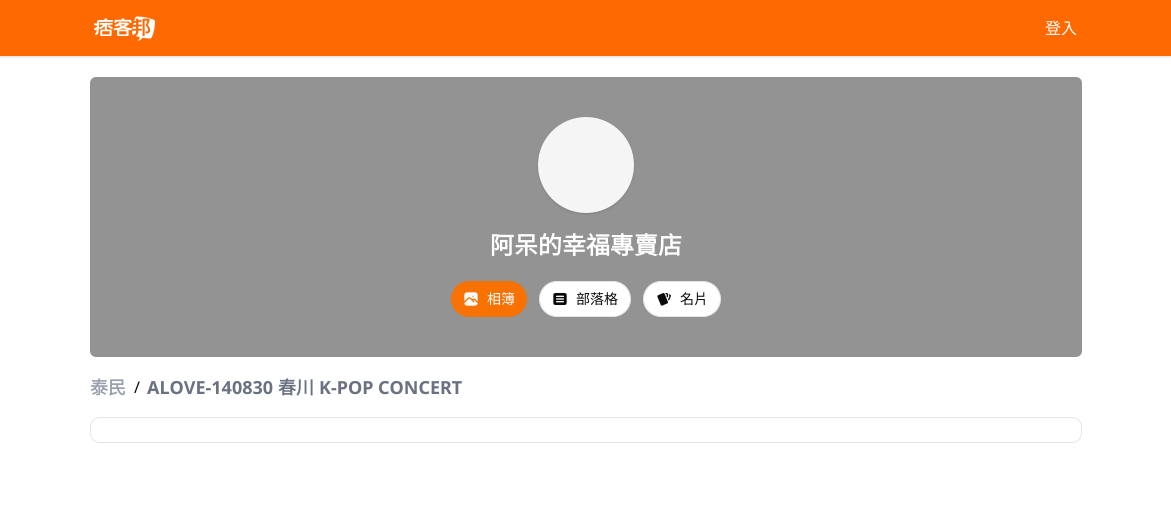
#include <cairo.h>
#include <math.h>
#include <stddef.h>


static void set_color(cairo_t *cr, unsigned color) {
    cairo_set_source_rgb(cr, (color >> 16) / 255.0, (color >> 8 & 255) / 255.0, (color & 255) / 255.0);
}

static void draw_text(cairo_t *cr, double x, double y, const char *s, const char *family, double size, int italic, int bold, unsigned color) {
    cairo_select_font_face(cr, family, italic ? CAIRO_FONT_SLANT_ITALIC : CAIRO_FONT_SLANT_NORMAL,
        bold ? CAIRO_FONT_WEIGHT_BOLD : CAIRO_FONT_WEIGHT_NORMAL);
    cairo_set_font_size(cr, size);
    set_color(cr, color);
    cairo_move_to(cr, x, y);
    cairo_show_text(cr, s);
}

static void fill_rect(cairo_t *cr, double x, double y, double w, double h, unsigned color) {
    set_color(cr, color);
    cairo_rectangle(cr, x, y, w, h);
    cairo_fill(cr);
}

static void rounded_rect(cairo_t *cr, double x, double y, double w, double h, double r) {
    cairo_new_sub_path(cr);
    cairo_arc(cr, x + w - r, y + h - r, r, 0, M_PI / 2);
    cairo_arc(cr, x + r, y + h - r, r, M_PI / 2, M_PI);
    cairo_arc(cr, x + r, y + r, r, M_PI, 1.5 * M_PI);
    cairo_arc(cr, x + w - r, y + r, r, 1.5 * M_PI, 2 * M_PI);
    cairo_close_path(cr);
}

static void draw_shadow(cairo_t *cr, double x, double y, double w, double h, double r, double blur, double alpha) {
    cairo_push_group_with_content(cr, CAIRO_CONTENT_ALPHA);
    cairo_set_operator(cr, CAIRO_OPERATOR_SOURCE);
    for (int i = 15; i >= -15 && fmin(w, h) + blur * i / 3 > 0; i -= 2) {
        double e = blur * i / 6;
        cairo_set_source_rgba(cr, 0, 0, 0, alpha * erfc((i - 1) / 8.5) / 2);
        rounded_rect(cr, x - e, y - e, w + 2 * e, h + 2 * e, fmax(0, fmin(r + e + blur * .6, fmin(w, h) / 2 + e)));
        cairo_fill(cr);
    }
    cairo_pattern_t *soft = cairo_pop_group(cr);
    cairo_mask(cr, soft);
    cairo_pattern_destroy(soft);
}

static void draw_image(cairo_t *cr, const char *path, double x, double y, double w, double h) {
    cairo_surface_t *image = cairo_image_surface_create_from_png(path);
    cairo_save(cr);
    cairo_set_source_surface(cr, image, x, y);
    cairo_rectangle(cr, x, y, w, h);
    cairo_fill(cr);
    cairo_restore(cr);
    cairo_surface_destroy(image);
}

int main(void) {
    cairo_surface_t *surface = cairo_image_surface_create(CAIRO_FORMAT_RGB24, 1171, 519);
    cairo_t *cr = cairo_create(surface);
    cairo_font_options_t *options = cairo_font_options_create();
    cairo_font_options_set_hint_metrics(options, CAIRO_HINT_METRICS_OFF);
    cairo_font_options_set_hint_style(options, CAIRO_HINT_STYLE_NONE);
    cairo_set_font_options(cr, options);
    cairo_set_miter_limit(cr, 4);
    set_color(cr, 0xFFFFFF);
    cairo_paint(cr);
    set_color(cr, 0x000000);
    draw_shadow(cr, 1, 2, 1169, 54, 0, 1, 0.1);
    draw_shadow(cr, 0, 1, 1171, 56, 0, 1.5, 0.1);
    fill_rect(cr, 0, 0, 1171, 56, 0xFF6900);
    draw_image(cr, "assets/img1.png", 94, 16, 61, 25);
    draw_text(cr, 1045, 34, "登入", "Noto Sans CJK TC", 16, 0, 0, 0xFFFFFF);
    set_color(cr, 0x939393);
    rounded_rect(cr, 90, 77, 992, 280, 6);
    cairo_fill(cr);
    set_color(cr, 0x000000);
    draw_shadow(cr, 539, 119, 94, 94, 47, 1, 0.1);
    draw_shadow(cr, 538, 118, 96, 96, 48, 1.5, 0.1);
    set_color(cr, 0xF5F5F5);
    cairo_arc(cr, 586, 165, 48, 0, 2 * M_PI);
    cairo_fill(cr);
    draw_text(cr, 490, 254, "阿呆的幸福專賣店", "Noto Sans CJK TC", 24, 0, 1, 0xFFFFFF);
    set_color(cr, 0xF87103);
    rounded_rect(cr, 451, 281, 76, 36, 18);
    cairo_fill(cr);
    draw_image(cr, "assets/img2.png", 464, 292, 14, 14);
    draw_text(cr, 487, 304, "相簿", "Noto Sans CJK TC", 14, 0, 0, 0xFFFFFF);
    rounded_rect(cr, 539.5, 281.5, 91, 35, 17.5);
    cairo_fill_preserve(cr);
    set_color(cr, 0xE5E5E5);
    cairo_set_line_width(cr, 1);
    cairo_stroke(cr);
    draw_image(cr, "assets/img3.png", 553, 293, 14, 12);
    draw_text(cr, 576, 304, "部落格", "Noto Sans CJK TC", 14, 0, 0, 0x0A0A0A);
    set_color(cr, 0xFFFFFF);
    rounded_rect(cr, 643.5, 281.5, 77, 35, 17.5);
    cairo_fill_preserve(cr);
    set_color(cr, 0xE5E5E5);
    cairo_stroke(cr);
    draw_image(cr, "assets/img4.png", 657, 293, 14, 13);
    draw_text(cr, 680, 304, "名片", "Noto Sans CJK TC", 14, 0, 0, 0x0A0A0A);
    draw_text(cr, 90, 394, "泰民", "Noto Sans CJK TC", 18, 0, 1, 0x99A1AF);
    draw_text(cr, 134, 393, "/", "Noto Sans", 16, 0, 0, 0x0A0A0A);
    draw_text(cr, 147, 394, "ALOVE-140830", "Noto Sans", 18, 0, 1, 0x6A7282);
    draw_text(cr, 278, 394, "春川", "Noto Sans CJK TC", 18, 0, 1, 0x6A7282);
    draw_text(cr, 319, 394, "K-POP CONCERT", "Noto Sans", 18, 0, 1, 0x6A7282);
    rounded_rect(cr, 90.5, 417.5, 991, 25, 9.5);
    set_color(cr, 0xE5E5E5);
    cairo_stroke(cr);
    cairo_surface_write_to_png(surface, "output.png");
    cairo_font_options_destroy(options);
    cairo_destroy(cr);
    cairo_surface_destroy(surface);
    return 0;
}
